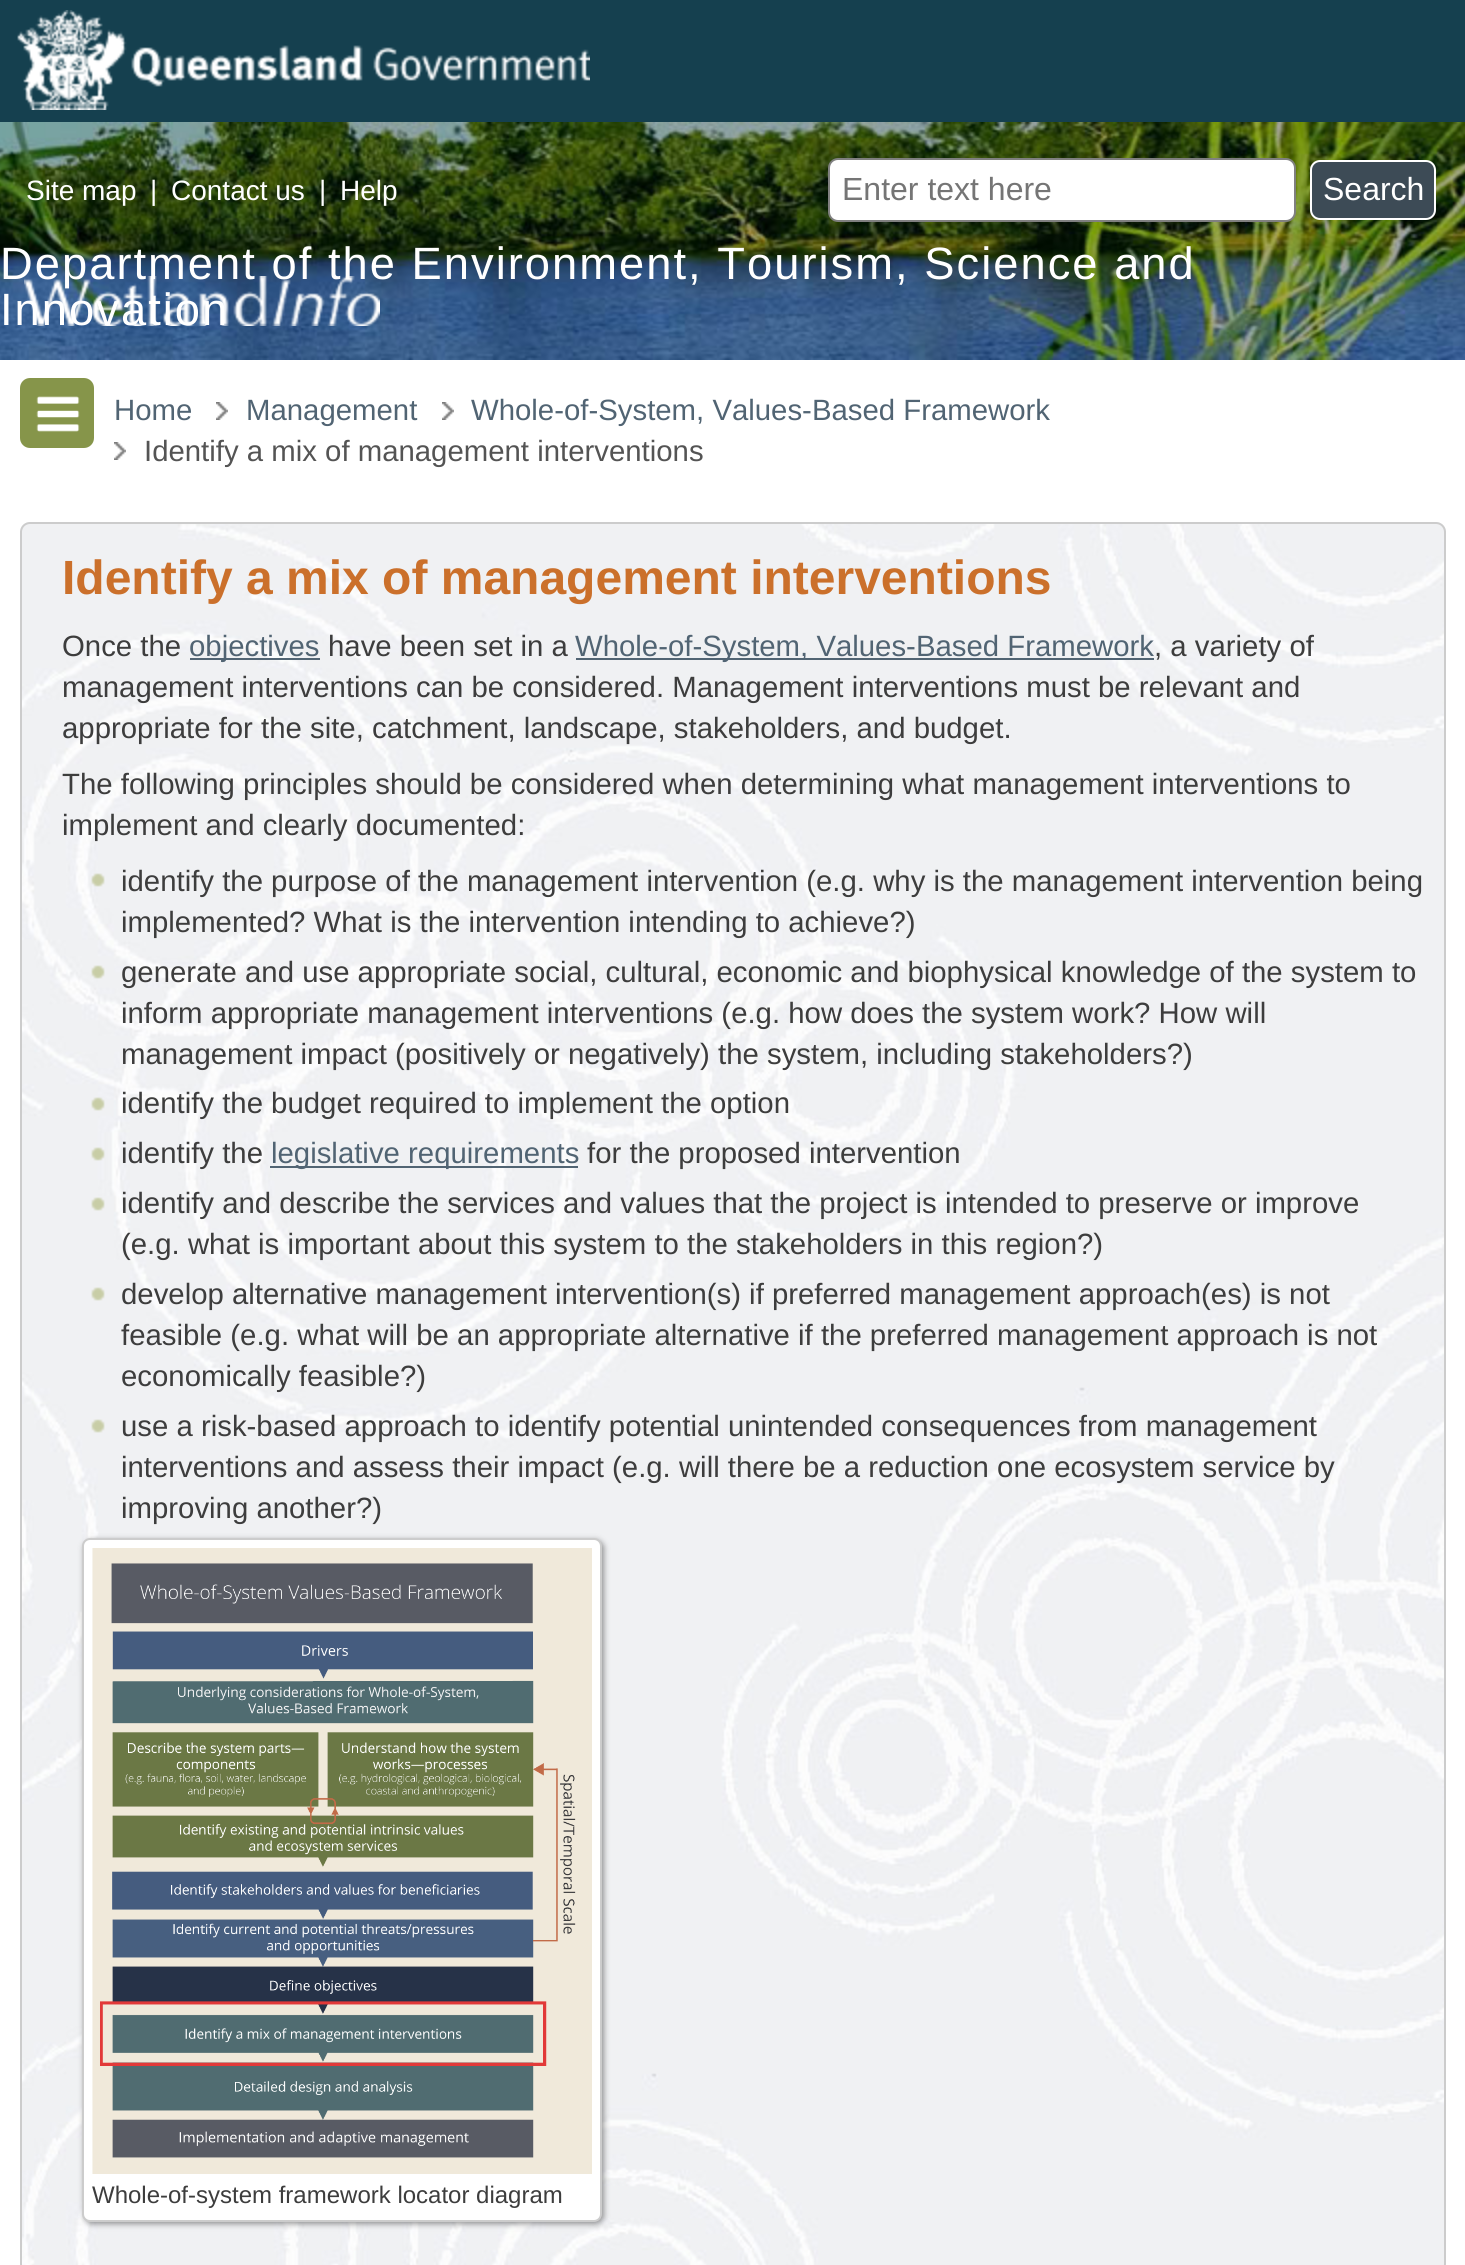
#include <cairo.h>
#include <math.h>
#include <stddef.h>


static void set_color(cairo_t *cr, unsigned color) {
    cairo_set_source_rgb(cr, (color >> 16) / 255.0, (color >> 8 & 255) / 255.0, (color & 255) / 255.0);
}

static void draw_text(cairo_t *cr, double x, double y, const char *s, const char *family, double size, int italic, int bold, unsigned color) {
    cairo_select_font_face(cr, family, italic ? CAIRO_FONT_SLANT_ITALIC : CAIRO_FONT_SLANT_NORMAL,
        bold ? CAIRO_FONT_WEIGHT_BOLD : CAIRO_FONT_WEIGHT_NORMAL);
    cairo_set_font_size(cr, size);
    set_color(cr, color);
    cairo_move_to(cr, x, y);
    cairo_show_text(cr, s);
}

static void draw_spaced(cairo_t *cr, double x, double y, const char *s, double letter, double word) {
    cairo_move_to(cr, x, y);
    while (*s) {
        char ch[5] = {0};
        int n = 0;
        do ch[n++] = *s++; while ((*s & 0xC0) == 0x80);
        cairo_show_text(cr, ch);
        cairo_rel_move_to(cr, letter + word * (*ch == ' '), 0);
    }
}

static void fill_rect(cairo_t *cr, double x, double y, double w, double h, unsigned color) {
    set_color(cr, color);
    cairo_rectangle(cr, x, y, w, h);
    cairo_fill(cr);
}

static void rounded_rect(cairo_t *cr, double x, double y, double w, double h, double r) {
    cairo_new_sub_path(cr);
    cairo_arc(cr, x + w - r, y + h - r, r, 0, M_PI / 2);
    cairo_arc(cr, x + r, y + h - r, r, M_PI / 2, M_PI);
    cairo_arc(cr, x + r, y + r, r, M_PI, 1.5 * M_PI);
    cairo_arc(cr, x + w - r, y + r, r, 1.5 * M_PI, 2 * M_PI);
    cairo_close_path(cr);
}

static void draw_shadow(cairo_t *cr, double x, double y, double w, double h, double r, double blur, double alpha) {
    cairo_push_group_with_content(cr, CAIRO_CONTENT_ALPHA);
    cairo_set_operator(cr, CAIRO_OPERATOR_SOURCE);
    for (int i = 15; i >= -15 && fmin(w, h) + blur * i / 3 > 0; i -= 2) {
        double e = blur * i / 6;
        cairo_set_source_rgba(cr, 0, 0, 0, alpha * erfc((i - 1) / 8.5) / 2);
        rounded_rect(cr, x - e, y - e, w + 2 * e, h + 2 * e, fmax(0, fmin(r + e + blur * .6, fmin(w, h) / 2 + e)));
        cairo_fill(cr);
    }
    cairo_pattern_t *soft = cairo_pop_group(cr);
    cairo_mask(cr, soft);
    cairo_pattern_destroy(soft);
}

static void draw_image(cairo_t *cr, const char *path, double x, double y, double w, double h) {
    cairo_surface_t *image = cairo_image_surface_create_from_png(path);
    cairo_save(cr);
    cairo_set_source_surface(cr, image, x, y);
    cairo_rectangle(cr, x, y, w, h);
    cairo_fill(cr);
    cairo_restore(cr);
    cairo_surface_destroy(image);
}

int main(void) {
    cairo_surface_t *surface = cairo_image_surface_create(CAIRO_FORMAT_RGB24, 1465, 2265);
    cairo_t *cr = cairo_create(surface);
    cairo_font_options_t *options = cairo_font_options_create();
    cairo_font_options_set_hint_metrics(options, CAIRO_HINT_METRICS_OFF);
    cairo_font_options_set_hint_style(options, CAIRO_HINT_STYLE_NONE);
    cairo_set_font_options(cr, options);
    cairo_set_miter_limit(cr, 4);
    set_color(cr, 0xFFFFFF);
    cairo_paint(cr);
    fill_rect(cr, 0, 0, 1465, 122, 0x15404F);
    draw_image(cr, "assets/img1.png", 0, 122, 1465, 238);
    draw_image(cr, "assets/img2.png", 17, 10, 573, 100);
    draw_text(cr, 26, 200, "Site map", "Liberation Sans", 28, 0, 0, 0xFFFFFF);
    draw_text(cr, 150, 200, "|", "Liberation Sans", 28, 0, 0, 0xFFFFFF);
    draw_text(cr, 171, 200, "Contact us", "Liberation Sans", 28, 0, 0, 0xFFFFFF);
    draw_text(cr, 319, 200, "|", "Liberation Sans", 28, 0, 0, 0xFFFFFF);
    draw_text(cr, 340, 200, "Help", "Liberation Sans", 28, 0, 0, 0xFFFFFF);
    rounded_rect(cr, 829, 159, 466, 62, 9);
    cairo_fill_preserve(cr);
    set_color(cr, 0x808080);
    cairo_stroke(cr);
    draw_text(cr, 842, 200, "Enter text here", "Liberation Sans", 32, 0, 0, 0x757575);
    set_color(cr, 0x3D4B56);
    rounded_rect(cr, 1311, 161, 124, 58, 9);
    cairo_fill_preserve(cr);
    set_color(cr, 0xFFFFFF);
    cairo_stroke(cr);
    draw_text(cr, 1323, 200, "Search", "Liberation Sans", 32, 0, 0, 0xFFFFFF);
    draw_image(cr, "assets/img3.png", 24, 276, 356, 50);
    cairo_set_font_size(cr, 45.3);
    draw_spaced(cr, 0, 279, "Department of the Environment, Tourism, Science and", 2.02, 0);
    draw_spaced(cr, 0, 325, "Innovation", 2.02, 0);
    set_color(cr, 0x86954A);
    rounded_rect(cr, 20, 378, 74, 70, 10);
    cairo_fill(cr);
    draw_image(cr, "assets/img4.png", 36, 396, 44, 36);
    draw_text(cr, 114, 420, "Home", "Liberation Sans", 29.35, 0, 0, 0x516473);
    draw_image(cr, "assets/img5.png", 216, 402, 12, 18);
    draw_text(cr, 246, 420, "Management", "Liberation Sans", 29.35, 0, 0, 0x516473);
    draw_image(cr, "assets/img5.png", 442, 402, 12, 18);
    draw_text(cr, 471, 420, "Whole-of-System, Values-Based Framework", "Liberation Sans", 29.35, 0, 0, 0x516473);
    draw_image(cr, "assets/img5.png", 114, 442, 12, 18);
    draw_text(cr, 144, 461, "Identify a mix of management interventions", "Liberation Sans", 29.35, 0, 0, 0x545454);
    draw_image(cr, "assets/img6.png", 20, 522, 1426, 1743);
    rounded_rect(cr, 21, 523, 1424, 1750, 9);
    set_color(cr, 0xCCCCCC);
    cairo_stroke(cr);
    draw_text(cr, 62, 594, "Identify a mix of management interventions", "Liberation Sans", 48, 0, 1, 0xCB702B);
    draw_text(cr, 62, 656, "Once the", "Liberation Sans", 29.35, 0, 0, 0x3D3D3D);
    fill_rect(cr, 190, 658, 130, 2, 0x516473);
    draw_text(cr, 189, 656, "objectives", "Liberation Sans", 29.35, 0, 0, 0x516473);
    draw_text(cr, 328, 656, "have been set in a", "Liberation Sans", 29.35, 0, 0, 0x3D3D3D);
    fill_rect(cr, 576, 658, 578, 2, 0x516473);
    draw_text(cr, 575, 656, "Whole-of-System, Values-Based Framework", "Liberation Sans", 29.35, 0, 0, 0x516473);
    draw_text(cr, 1154, 656, ", a variety of", "Liberation Sans", 29.35, 0, 0, 0x3D3D3D);
    draw_text(cr, 62, 697, "management interventions can be considered. Management interventions must be relevant and", "Liberation Sans", 29.35, 0, 0, 0x3D3D3D);
    draw_text(cr, 62, 738, "appropriate for the site, catchment, landscape, stakeholders, and budget.", "Liberation Sans", 29.35, 0, 0, 0x3D3D3D);
    draw_text(cr, 62, 794, "The following principles should be considered when determining what management interventions to", "Liberation Sans", 29.35, 0, 0, 0x3D3D3D);
    draw_text(cr, 62, 835, "implement and clearly documented:", "Liberation Sans", 29.35, 0, 0, 0x3D3D3D);
    draw_image(cr, "assets/img7.png", 91, 873, 14, 14);
    draw_text(cr, 121, 891, "identify the purpose of the management intervention (e.g. why is the management intervention being", "Liberation Sans", 29.35, 0, 0, 0x3D3D3D);
    draw_text(cr, 121, 932, "implemented? What is the intervention intending to achieve?)", "Liberation Sans", 29.35, 0, 0, 0x3D3D3D);
    draw_image(cr, "assets/img8.png", 91, 965, 14, 14);
    draw_text(cr, 121, 982, "generate and use appropriate social, cultural, economic and biophysical knowledge of the system to", "Liberation Sans", 29.35, 0, 0, 0x3D3D3D);
    draw_text(cr, 121, 1023, "inform appropriate management interventions (e.g. how does the system work? How will", "Liberation Sans", 29.35, 0, 0, 0x3D3D3D);
    draw_text(cr, 121, 1064, "management impact (positively or negatively) the system, including stakeholders?)", "Liberation Sans", 29.35, 0, 0, 0x3D3D3D);
    draw_image(cr, "assets/img9.png", 91, 1097, 14, 14);
    draw_text(cr, 121, 1113, "identify the budget required to implement the option", "Liberation Sans", 29.35, 0, 0, 0x3D3D3D);
    draw_image(cr, "assets/img10.png", 91, 1147, 14, 14);
    draw_text(cr, 121, 1163, "identify the", "Liberation Sans", 29.35, 0, 0, 0x3D3D3D);
    fill_rect(cr, 270, 1166, 308, 2, 0x516473);
    draw_text(cr, 271, 1163, "legislative requirements", "Liberation Sans", 29.35, 0, 0, 0x516473);
    draw_text(cr, 587, 1163, "for the proposed intervention", "Liberation Sans", 29.35, 0, 0, 0x3D3D3D);
    draw_image(cr, "assets/img11.png", 91, 1197, 14, 14);
    draw_text(cr, 121, 1213, "identify and describe the services and values that the project is intended to preserve or improve", "Liberation Sans", 29.35, 0, 0, 0x3D3D3D);
    draw_text(cr, 121, 1254, "(e.g. what is important about this system to the stakeholders in this region?)", "Liberation Sans", 29.35, 0, 0, 0x3D3D3D);
    draw_image(cr, "assets/img11.png", 91, 1287, 14, 14);
    draw_text(cr, 121, 1304, "develop alternative management intervention(s) if preferred management approach(es) is not", "Liberation Sans", 29.35, 0, 0, 0x3D3D3D);
    draw_text(cr, 121, 1345, "feasible (e.g. what will be an appropriate alternative if the preferred management approach is not", "Liberation Sans", 29.35, 0, 0, 0x3D3D3D);
    draw_text(cr, 121, 1386, "economically feasible?)", "Liberation Sans", 29.35, 0, 0, 0x3D3D3D);
    draw_image(cr, "assets/img11.png", 91, 1419, 14, 14);
    draw_text(cr, 121, 1436, "use a risk-based approach to identify potential unintended consequences from management", "Liberation Sans", 29.35, 0, 0, 0x3D3D3D);
    draw_text(cr, 121, 1477, "interventions and assess their impact (e.g. will there be a reduction one ecosystem service by", "Liberation Sans", 29.35, 0, 0, 0x3D3D3D);
    draw_text(cr, 121, 1518, "improving another?)", "Liberation Sans", 29.35, 0, 0, 0x3D3D3D);
    set_color(cr, 0x000000);
    draw_shadow(cr, 84, 1540, 520, 684, 8, 3, 0.4);
    set_color(cr, 0xFFFFFF);
    rounded_rect(cr, 83, 1539, 518, 682, 7);
    cairo_fill_preserve(cr);
    set_color(cr, 0xCCCCCC);
    cairo_stroke(cr);
    draw_image(cr, "assets/img12.png", 92, 1548, 500, 626);
    draw_text(cr, 92, 2203, "Whole-of-system framework locator diagram", "Liberation Sans", 24, 0, 0, 0x3D3D3D);
    cairo_surface_write_to_png(surface, "output.png");
    cairo_font_options_destroy(options);
    cairo_destroy(cr);
    cairo_surface_destroy(surface);
    return 0;
}
